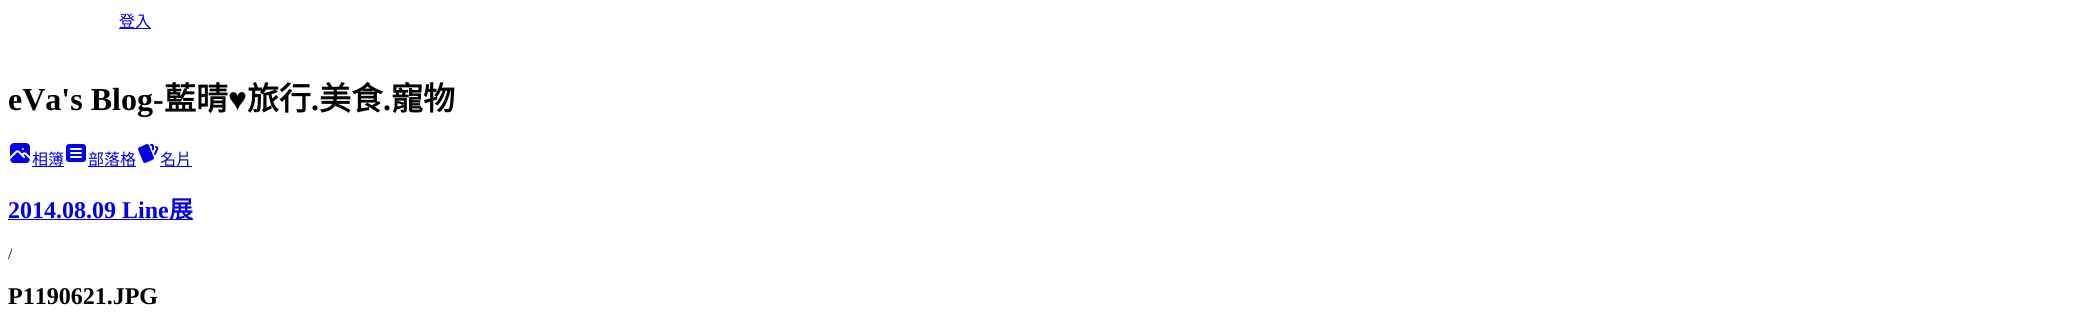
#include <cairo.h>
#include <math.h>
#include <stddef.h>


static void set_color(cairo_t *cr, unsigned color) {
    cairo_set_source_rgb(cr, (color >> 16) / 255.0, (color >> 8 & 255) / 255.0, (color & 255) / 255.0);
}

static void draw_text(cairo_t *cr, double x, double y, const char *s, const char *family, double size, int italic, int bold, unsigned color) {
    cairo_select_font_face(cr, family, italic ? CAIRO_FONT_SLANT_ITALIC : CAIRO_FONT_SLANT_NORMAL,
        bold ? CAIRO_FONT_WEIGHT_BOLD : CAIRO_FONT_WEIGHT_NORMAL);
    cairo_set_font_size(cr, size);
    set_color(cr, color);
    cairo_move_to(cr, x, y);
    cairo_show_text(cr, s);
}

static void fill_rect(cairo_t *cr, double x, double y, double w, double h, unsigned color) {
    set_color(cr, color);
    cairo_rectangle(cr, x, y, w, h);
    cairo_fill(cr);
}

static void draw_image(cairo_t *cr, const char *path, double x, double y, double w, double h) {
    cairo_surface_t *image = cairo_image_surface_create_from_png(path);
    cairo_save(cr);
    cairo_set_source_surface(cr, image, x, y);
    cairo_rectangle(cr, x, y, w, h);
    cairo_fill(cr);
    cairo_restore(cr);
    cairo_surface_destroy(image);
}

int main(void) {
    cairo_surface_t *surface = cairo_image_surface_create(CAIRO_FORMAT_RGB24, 2084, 331);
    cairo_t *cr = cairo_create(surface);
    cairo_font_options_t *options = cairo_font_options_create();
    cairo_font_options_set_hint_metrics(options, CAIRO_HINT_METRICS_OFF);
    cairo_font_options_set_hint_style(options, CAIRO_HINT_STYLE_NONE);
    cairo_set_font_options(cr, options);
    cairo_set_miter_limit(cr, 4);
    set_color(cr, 0xFFFFFF);
    cairo_paint(cr);
    fill_rect(cr, 119, 28, 32, 1, 0x0000EE);
    draw_text(cr, 119, 27, "登入", "Noto Sans CJK TC", 16, 0, 0, 0x0000EE);
    draw_text(cr, 8, 110, "eVa's Blog-", "Liberation Serif", 32, 0, 1, 0x000000);
    draw_text(cr, 164, 110, "藍晴", "Noto Sans CJK TC", 32, 0, 1, 0x000000);
    draw_text(cr, 228, 110, "♥", "Liberation Serif", 32, 0, 1, 0x000000);
    draw_text(cr, 247, 110, "旅行", "Noto Sans CJK TC", 32, 0, 1, 0x000000);
    draw_text(cr, 311, 110, ".", "Liberation Serif", 32, 0, 1, 0x000000);
    draw_text(cr, 319, 110, "美食", "Noto Sans CJK TC", 32, 0, 1, 0x000000);
    draw_text(cr, 383, 110, ".", "Liberation Serif", 32, 0, 1, 0x000000);
    draw_text(cr, 391, 110, "寵物", "Noto Sans CJK TC", 32, 0, 1, 0x000000);
    draw_image(cr, "assets/img1.png", 10, 143, 20, 20);
    fill_rect(cr, 32, 166, 32, 1, 0x0000EE);
    draw_text(cr, 32, 165, "相簿", "Noto Sans CJK TC", 16, 0, 0, 0x0000EE);
    draw_image(cr, "assets/img2.png", 66, 144, 20, 18);
    fill_rect(cr, 88, 166, 48, 1, 0x0000EE);
    draw_text(cr, 88, 165, "部落格", "Noto Sans CJK TC", 16, 0, 0, 0x0000EE);
    draw_image(cr, "assets/img3.png", 138, 144, 21, 19);
    fill_rect(cr, 160, 166, 32, 1, 0x0000EE);
    draw_text(cr, 160, 165, "名片", "Noto Sans CJK TC", 16, 0, 0, 0x0000EE);
    draw_text(cr, 8, 218, "2014.08.09 Line", "Liberation Serif", 24, 0, 1, 0x0000EE);
    fill_rect(cr, 8, 219, 185, 1, 0x0000EE);
    draw_text(cr, 169, 218, "展", "Noto Sans CJK TC", 24, 0, 1, 0x0000EE);
    draw_text(cr, 8, 259, "/", "Liberation Serif", 16, 0, 0, 0x000000);
    draw_text(cr, 8, 304, "P1190621.JPG", "Liberation Serif", 24, 0, 1, 0x000000);
    cairo_surface_write_to_png(surface, "output.png");
    cairo_font_options_destroy(options);
    cairo_destroy(cr);
    cairo_surface_destroy(surface);
    return 0;
}
